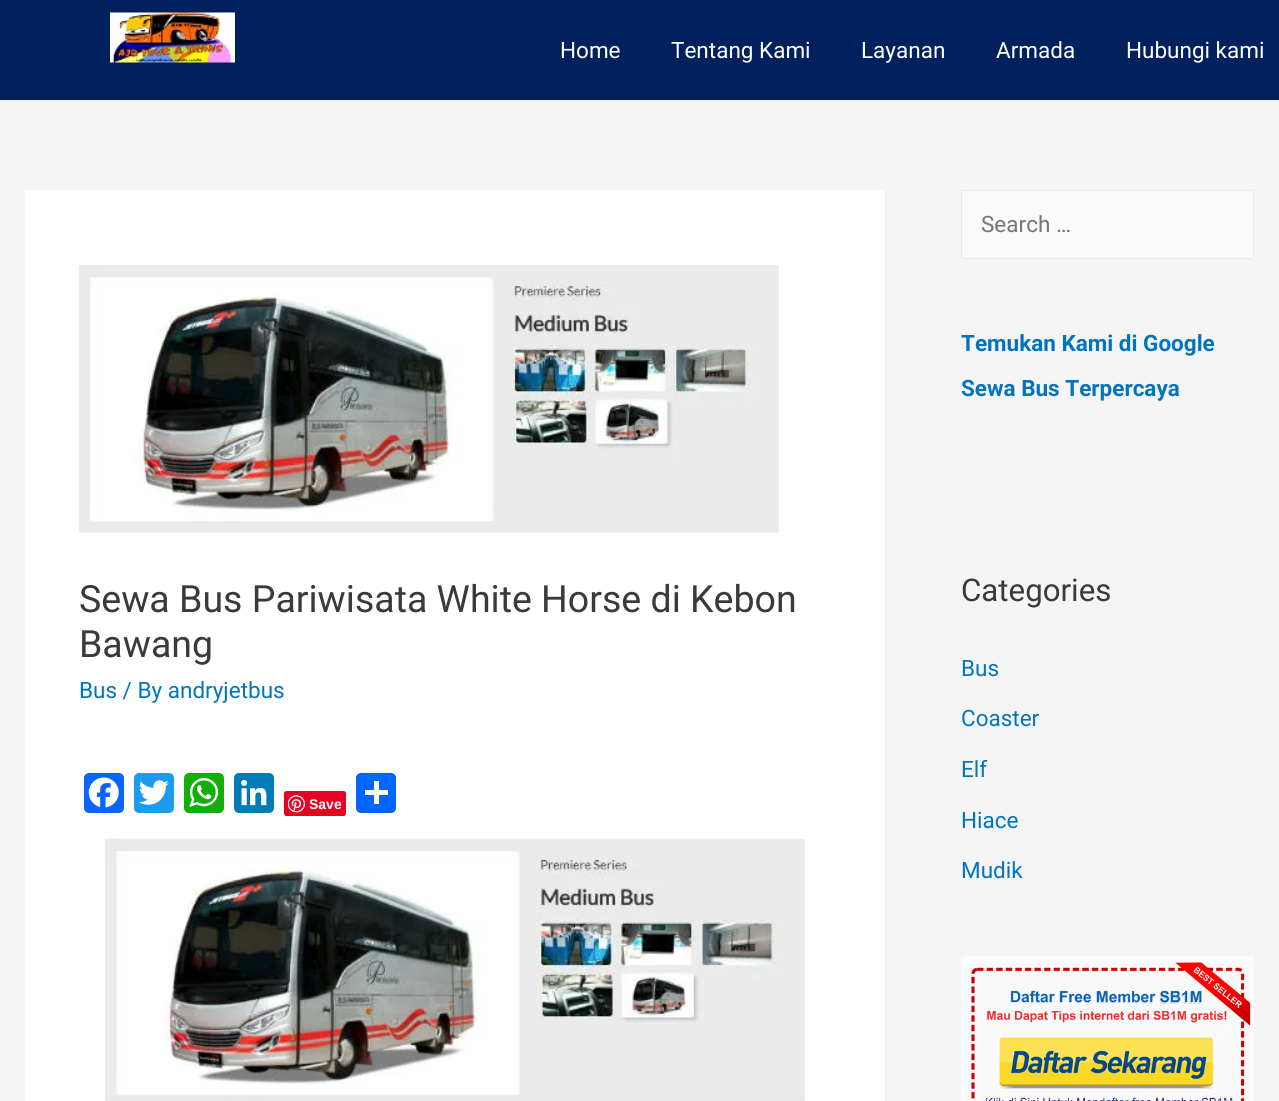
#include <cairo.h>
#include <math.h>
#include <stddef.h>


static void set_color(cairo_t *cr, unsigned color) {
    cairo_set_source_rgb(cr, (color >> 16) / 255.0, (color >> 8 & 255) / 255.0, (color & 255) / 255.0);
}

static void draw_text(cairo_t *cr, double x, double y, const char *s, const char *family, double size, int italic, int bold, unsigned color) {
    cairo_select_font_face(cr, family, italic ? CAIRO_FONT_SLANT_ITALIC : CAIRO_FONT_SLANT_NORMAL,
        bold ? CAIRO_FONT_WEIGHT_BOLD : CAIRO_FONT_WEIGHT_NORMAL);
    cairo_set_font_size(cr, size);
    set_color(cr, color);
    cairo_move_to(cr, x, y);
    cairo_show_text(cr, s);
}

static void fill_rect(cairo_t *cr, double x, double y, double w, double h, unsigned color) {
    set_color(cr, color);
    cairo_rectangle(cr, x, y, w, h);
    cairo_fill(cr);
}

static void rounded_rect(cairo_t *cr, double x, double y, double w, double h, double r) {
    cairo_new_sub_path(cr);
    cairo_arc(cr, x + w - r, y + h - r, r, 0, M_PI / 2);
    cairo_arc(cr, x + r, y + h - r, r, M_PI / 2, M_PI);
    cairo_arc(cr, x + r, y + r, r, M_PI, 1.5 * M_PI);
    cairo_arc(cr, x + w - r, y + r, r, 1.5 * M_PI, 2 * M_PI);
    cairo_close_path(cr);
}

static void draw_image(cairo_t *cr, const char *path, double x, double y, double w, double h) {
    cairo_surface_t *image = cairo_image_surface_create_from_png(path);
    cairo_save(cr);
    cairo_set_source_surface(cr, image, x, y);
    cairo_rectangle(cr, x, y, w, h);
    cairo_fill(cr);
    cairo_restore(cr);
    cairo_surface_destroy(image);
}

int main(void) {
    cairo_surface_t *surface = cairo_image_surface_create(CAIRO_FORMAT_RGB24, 1279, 1101);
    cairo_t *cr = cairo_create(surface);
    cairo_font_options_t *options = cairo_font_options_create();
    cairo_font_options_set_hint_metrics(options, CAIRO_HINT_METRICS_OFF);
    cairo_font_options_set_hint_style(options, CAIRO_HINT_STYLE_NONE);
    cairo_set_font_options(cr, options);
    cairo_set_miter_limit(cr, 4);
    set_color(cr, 0xF5F5F5);
    cairo_paint(cr);
    fill_rect(cr, 0, 0, 1279, 100, 0x00215E);
    draw_image(cr, "assets/img1.png", 110, 12, 125, 51);
    draw_text(cr, 560, 58, "Home", "Roboto", 22.5, 0, 0, 0xFFFFFF);
    draw_text(cr, 671, 58, "Tentang Kami", "Roboto", 22.5, 0, 0, 0xFFFFFF);
    draw_text(cr, 861, 58, "Layanan", "Roboto", 22.5, 0, 0, 0xFFFFFF);
    draw_text(cr, 996, 58, "Armada", "Roboto", 22.5, 0, 0, 0xFFFFFF);
    draw_text(cr, 1126, 58, "Hubungi kami", "Roboto", 22.5, 0, 0, 0xFFFFFF);
    fill_rect(cr, 25, 190, 860, 911, 0xFFFFFF);
    draw_image(cr, "assets/img2.png", 78, 265, 701, 268);
    draw_text(cr, 79, 612, "Sewa Bus Pariwisata White Horse di Kebon", "Roboto", 37.5, 0, 0, 0x3A3A3A);
    draw_text(cr, 79, 657, "Bawang", "Roboto", 37.5, 0, 0, 0x3A3A3A);
    draw_text(cr, 79, 698, "Bus / By andryjetbus", "Roboto", 22.5, 0, 0, 0x0274BE);
    set_color(cr, 0x0866FF);
    rounded_rect(cr, 84, 773, 40, 40, 5);
    cairo_fill(cr);
    draw_image(cr, "assets/img3.png", 88, 777, 31, 31);
    set_color(cr, 0x1D9BF0);
    rounded_rect(cr, 134, 773, 40, 40, 5);
    cairo_fill(cr);
    draw_image(cr, "assets/img4.png", 139, 780, 30, 25);
    set_color(cr, 0x12AF0A);
    rounded_rect(cr, 184, 773, 40, 40, 5);
    cairo_fill(cr);
    draw_image(cr, "assets/img5.png", 189, 778, 30, 29);
    set_color(cr, 0x007BB5);
    rounded_rect(cr, 234, 773, 40, 40, 5);
    cairo_fill(cr);
    draw_image(cr, "assets/img6.png", 241, 779, 26, 27);
    set_color(cr, 0xE60023);
    rounded_rect(cr, 284, 791, 62, 25, 2.5);
    cairo_fill(cr);
    draw_image(cr, "assets/img7.png", 288, 795, 17, 18);
    draw_text(cr, 309, 809, "Save", "Liberation Sans", 14, 0, 1, 0xFFFFFF);
    set_color(cr, 0x0166FF);
    rounded_rect(cr, 356, 773, 40, 40, 5);
    cairo_fill(cr);
    fill_rect(cr, 374, 781, 5, 23, 0xFFFFFF);
    fill_rect(cr, 365, 790, 23, 5, 0xFFFFFF);
    draw_image(cr, "assets/img8.png", 105, 838, 700, 263);
    fill_rect(cr, 885, 190, 1, 911, 0xEEEEEE);
    set_color(cr, 0xFAFAFA);
    rounded_rect(cr, 961.5, 190.5, 292, 68, 2);
    cairo_fill_preserve(cr);
    set_color(cr, 0xEAEAEA);
    cairo_set_line_width(cr, 1);
    cairo_stroke(cr);
    draw_text(cr, 981, 232, "Search …", "Roboto", 22.5, 0, 0, 0x757575);
    draw_text(cr, 961, 351, "Temukan Kami di Google", "Roboto", 22.5, 0, 1, 0x0274BE);
    draw_text(cr, 961, 396, "Sewa Bus Terpercaya", "Roboto", 22.5, 0, 1, 0x0274BE);
    draw_text(cr, 961, 601, "Categories", "Roboto", 31.25, 0, 0, 0x3A3A3A);
    draw_text(cr, 961, 676, "Bus", "Roboto", 22.5, 0, 0, 0x0274BE);
    draw_text(cr, 961, 726, "Coaster", "Roboto", 22.5, 0, 0, 0x0274BE);
    draw_text(cr, 961, 777, "Elf", "Roboto", 22.5, 0, 0, 0x0274BE);
    draw_text(cr, 961, 828, "Hiace", "Roboto", 22.5, 0, 0, 0x0274BE);
    draw_text(cr, 961, 878, "Mudik", "Roboto", 22.5, 0, 0, 0x0274BE);
    draw_image(cr, "assets/img9.png", 961, 956, 293, 145);
    cairo_surface_write_to_png(surface, "output.png");
    cairo_font_options_destroy(options);
    cairo_destroy(cr);
    cairo_surface_destroy(surface);
    return 0;
}
